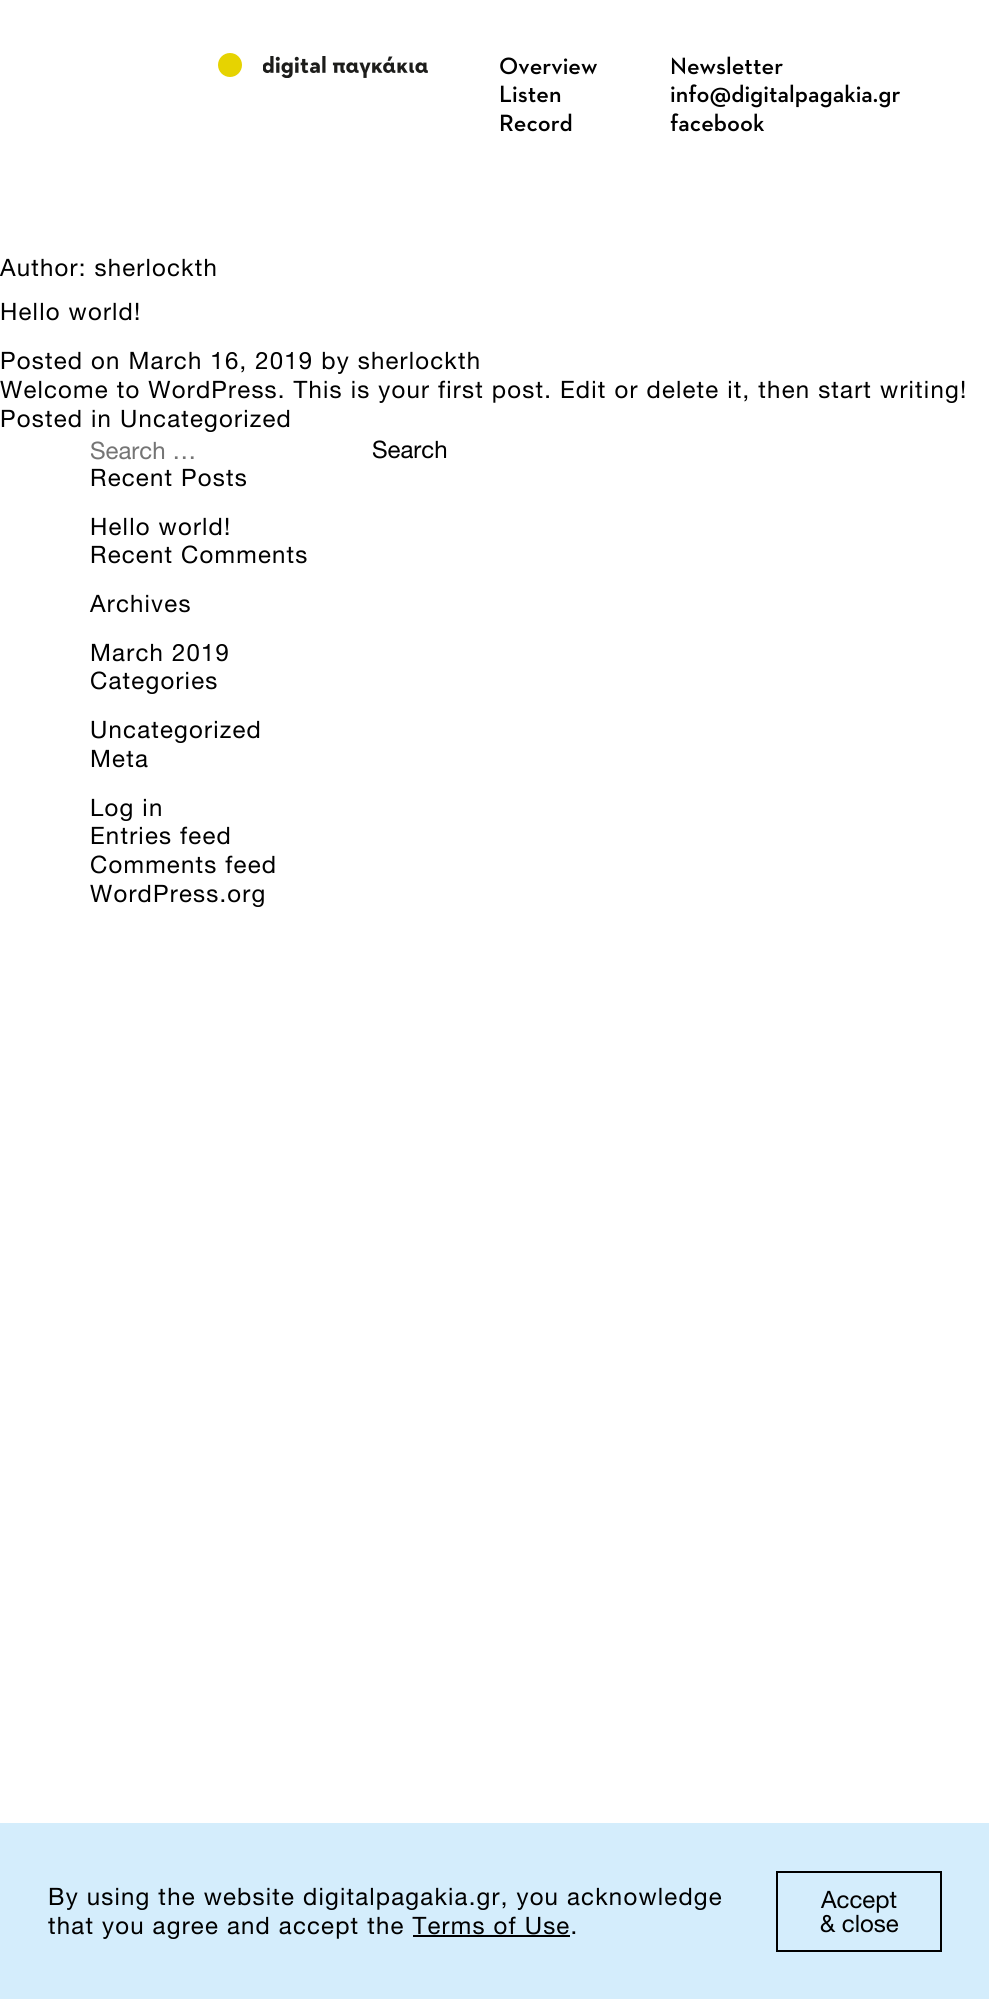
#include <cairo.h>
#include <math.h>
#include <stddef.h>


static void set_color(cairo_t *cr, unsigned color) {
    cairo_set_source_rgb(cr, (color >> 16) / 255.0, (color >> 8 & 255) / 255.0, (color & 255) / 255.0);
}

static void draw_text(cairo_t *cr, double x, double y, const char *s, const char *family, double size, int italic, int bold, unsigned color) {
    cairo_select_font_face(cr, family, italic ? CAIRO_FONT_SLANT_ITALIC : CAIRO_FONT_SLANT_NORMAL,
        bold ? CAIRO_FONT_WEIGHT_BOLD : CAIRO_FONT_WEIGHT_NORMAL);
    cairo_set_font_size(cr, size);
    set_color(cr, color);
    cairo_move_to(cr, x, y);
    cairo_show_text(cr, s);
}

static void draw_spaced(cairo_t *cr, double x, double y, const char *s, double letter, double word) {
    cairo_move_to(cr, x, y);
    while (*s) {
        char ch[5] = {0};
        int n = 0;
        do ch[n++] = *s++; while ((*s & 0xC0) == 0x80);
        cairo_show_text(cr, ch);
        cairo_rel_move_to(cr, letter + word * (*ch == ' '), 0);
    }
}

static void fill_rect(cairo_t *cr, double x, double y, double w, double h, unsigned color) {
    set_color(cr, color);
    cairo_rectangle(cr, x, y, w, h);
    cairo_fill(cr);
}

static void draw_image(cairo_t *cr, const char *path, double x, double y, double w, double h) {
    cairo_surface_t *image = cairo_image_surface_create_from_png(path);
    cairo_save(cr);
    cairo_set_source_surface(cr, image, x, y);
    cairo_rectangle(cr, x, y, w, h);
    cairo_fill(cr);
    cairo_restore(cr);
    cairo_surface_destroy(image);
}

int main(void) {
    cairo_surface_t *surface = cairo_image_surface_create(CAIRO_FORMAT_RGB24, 989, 1999);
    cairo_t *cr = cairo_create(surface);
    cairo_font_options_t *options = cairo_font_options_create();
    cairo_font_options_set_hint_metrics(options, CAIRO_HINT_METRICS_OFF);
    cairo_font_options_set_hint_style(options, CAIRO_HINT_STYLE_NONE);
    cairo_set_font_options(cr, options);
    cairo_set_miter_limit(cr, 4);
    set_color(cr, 0xFFFFFF);
    cairo_paint(cr);
    set_color(cr, 0xE6D301);
    cairo_arc(cr, 230, 65, 12, 0, 2 * M_PI);
    cairo_fill(cr);
    draw_image(cr, "assets/img1.png", 263, 56, 165, 22);
    draw_text(cr, 499, 74, "Overview", "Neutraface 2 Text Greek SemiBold", 24, 0, 0, 0x000000);
    draw_text(cr, 499, 102, "Listen", "Neutraface 2 Text Greek SemiBold", 24, 0, 0, 0x000000);
    draw_text(cr, 499, 131, "Record", "Neutraface 2 Text Greek SemiBold", 24, 0, 0, 0x000000);
    draw_text(cr, 670, 74, "Newsletter", "Neutraface 2 Text Greek SemiBold", 24, 0, 0, 0x000000);
    draw_text(cr, 670, 102, "info@digitalpagakia.gr", "Neutraface 2 Text Greek SemiBold", 24, 0, 0, 0x000000);
    draw_text(cr, 670, 131, "facebook", "Neutraface 2 Text Greek SemiBold", 24, 0, 0, 0x000000);
    cairo_select_font_face(cr, "Helvetica Neue", CAIRO_FONT_SLANT_NORMAL, CAIRO_FONT_WEIGHT_NORMAL);
    draw_spaced(cr, 0, 276, "Author: sherlockth", 1.2, 0);
    draw_spaced(cr, 0, 320, "Hello world!", 1.2, 0);
    draw_spaced(cr, 0, 369, "Posted on March 16, 2019 by sherlockth", 1.2, 0);
    draw_spaced(cr, 0, 398, "Welcome to WordPress. This is your first post. Edit or delete it, then start writing!", 1.2, 0);
    draw_spaced(cr, 0, 427, "Posted in Uncategorized", 1.2, 0);
    draw_text(cr, 90, 459, "Search …", "Helvetica Neue", 24, 0, 0, 0x757575);
    draw_text(cr, 372, 458, "Search", "Helvetica Neue", 24, 0, 0, 0x000000);
    draw_spaced(cr, 90, 486, "Recent Posts", 1.2, 0);
    draw_spaced(cr, 90, 535, "Hello world!", 1.2, 0);
    draw_spaced(cr, 90, 563, "Recent Comments", 1.2, 0);
    draw_spaced(cr, 90, 612, "Archives", 1.2, 0);
    draw_spaced(cr, 90, 661, "March 2019", 1.2, 0);
    draw_spaced(cr, 90, 689, "Categories", 1.2, 0);
    draw_spaced(cr, 90, 738, "Uncategorized", 1.2, 0);
    draw_spaced(cr, 90, 767, "Meta", 1.2, 0);
    draw_spaced(cr, 90, 816, "Log in", 1.2, 0);
    draw_spaced(cr, 90, 844, "Entries feed", 1.2, 0);
    draw_spaced(cr, 90, 873, "Comments feed", 1.2, 0);
    draw_spaced(cr, 90, 902, "WordPress.org", 1.2, 0);
    fill_rect(cr, 0, 1823, 989, 176, 0xD4EDFC);
    set_color(cr, 0x000000);
    draw_spaced(cr, 48, 1905, "By using the website digitalpagakia.gr, you acknowledge", 1.2, 0);
    draw_spaced(cr, 48, 1934, "that you agree and accept the Terms of Use.", 1.2, 0);
    fill_rect(cr, 413, 1935, 157, 2, 0x000000);
    cairo_rectangle(cr, 777, 1872, 164, 79);
    cairo_stroke(cr);
    draw_text(cr, 821, 1908, "Accept", "Helvetica Neue", 24, 0, 0, 0x000000);
    draw_text(cr, 820, 1932, "& close", "Helvetica Neue", 24, 0, 0, 0x000000);
    cairo_surface_write_to_png(surface, "output.png");
    cairo_font_options_destroy(options);
    cairo_destroy(cr);
    cairo_surface_destroy(surface);
    return 0;
}
